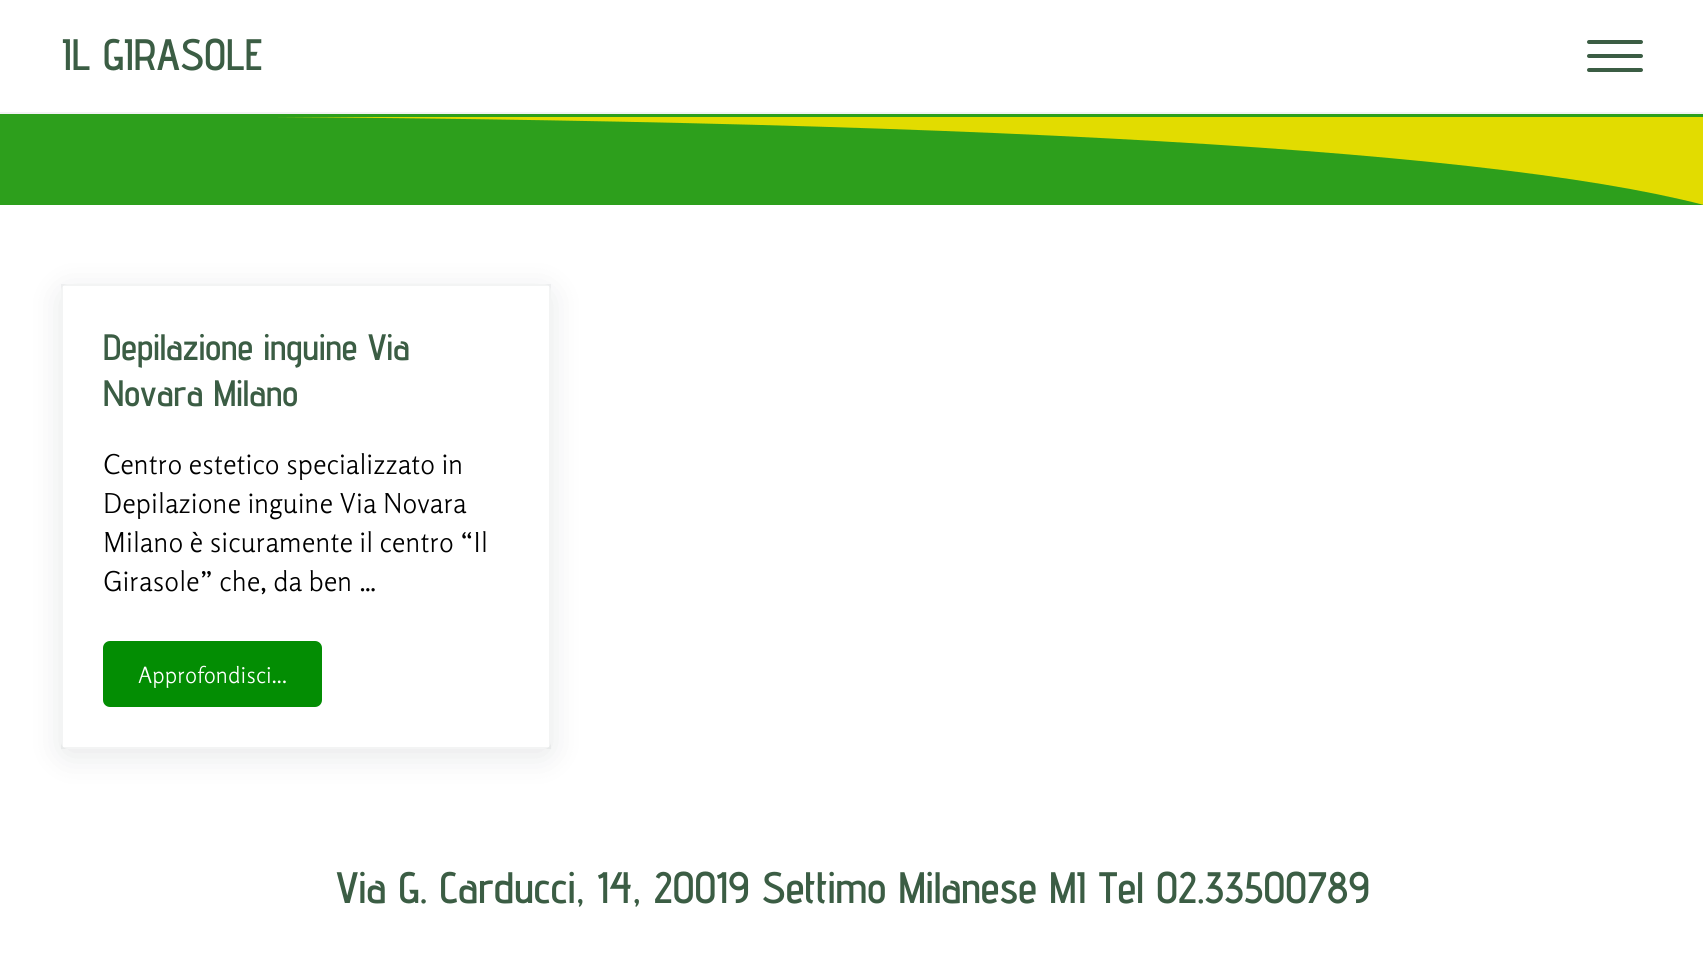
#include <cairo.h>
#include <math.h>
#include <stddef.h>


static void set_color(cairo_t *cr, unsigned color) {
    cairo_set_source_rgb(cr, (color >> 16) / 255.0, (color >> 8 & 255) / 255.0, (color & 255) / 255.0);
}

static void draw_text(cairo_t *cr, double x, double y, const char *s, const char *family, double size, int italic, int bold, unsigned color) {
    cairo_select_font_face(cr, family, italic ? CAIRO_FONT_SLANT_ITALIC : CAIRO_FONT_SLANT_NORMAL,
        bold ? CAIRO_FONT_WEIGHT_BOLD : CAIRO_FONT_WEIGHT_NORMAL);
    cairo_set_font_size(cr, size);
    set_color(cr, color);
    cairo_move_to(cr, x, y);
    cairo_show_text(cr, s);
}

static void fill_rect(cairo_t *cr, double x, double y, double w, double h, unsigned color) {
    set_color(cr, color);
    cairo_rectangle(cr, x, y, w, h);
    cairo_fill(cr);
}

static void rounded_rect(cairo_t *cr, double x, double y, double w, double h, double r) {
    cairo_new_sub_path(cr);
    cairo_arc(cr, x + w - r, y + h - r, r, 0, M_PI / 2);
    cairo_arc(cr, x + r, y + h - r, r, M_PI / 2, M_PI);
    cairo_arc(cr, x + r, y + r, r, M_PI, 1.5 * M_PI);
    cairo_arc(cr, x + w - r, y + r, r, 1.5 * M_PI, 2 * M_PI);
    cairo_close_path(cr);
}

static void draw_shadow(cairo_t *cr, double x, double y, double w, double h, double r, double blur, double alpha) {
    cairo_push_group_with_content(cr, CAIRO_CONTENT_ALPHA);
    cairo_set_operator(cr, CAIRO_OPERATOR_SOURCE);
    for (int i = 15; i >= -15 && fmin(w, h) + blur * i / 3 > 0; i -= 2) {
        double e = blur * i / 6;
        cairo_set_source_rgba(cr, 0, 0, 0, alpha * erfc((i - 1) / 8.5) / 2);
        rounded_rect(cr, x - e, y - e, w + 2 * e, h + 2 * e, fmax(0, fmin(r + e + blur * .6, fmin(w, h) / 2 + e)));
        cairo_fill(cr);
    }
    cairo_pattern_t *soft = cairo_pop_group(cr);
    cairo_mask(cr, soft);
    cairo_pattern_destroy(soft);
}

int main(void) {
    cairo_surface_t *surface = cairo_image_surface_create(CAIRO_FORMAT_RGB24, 1703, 974);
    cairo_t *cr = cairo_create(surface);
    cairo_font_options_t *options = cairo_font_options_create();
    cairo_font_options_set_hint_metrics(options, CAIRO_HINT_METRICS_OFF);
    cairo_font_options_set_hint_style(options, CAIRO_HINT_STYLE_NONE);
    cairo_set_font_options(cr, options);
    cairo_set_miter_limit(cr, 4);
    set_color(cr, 0xFFFFFF);
    cairo_paint(cr);
    fill_rect(cr, 0, 112, 1703, 2, 0xF3F3F4);
    draw_text(cr, 62, 70, "IL GIRASOLE", "Advent Pro SemiBold", 44, 0, 0, 0x3B5D44);
    rounded_rect(cr, 1587, 54, 56, 4, 2);
    cairo_fill(cr);
    rounded_rect(cr, 1587, 40, 56, 4, 2);
    cairo_fill(cr);
    rounded_rect(cr, 1587, 68, 56, 4, 2);
    cairo_fill(cr);
    fill_rect(cr, 0, 114, 1703, 91, 0x2D9F1C);
    cairo_save(cr);
    cairo_rectangle(cr, 0, 117, 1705, 88);
    cairo_clip(cr);
    set_color(cr, 0xE2DC00);
    cairo_new_path(cr);
    cairo_move_to(cr, 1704, 116);
    cairo_line_to(cr, 0, 116);
    cairo_curve_to(cr, 909, 116, 1477, 146, 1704, 205);
    cairo_close_path(cr);
    cairo_fill(cr);
    cairo_restore(cr);
    set_color(cr, 0x0A141E);
    draw_shadow(cr, 61, 291, 490, 465, 7, 15.5, 0.1);
    set_color(cr, 0xFFFFFF);
    rounded_rect(cr, 61, 284, 490, 465, 7);
    cairo_fill(cr);
    cairo_rectangle(cr, 62, 285, 488, 463);
    cairo_set_source_rgba(cr, 0.039, 0.078, 0.118, 0.05);
    cairo_stroke(cr);
    draw_text(cr, 103, 360, "Depilazione inguine Via", "Advent Pro SemiBold", 36.75, 0, 0, 0x3B5D44);
    draw_text(cr, 103, 406, "Novara Milano", "Advent Pro SemiBold", 36.75, 0, 0, 0x3B5D44);
    draw_text(cr, 103, 474, "Centro estetico specializzato in", "Rosario Light", 27.5, 0, 0, 0x000000);
    draw_text(cr, 103, 513, "Depilazione inguine Via Novara", "Rosario Light", 27.5, 0, 0, 0x000000);
    draw_text(cr, 103, 552, "Milano è sicuramente il centro “Il", "Rosario Light", 27.5, 0, 0, 0x000000);
    draw_text(cr, 103, 591, "Girasole” che, da ben …", "Rosario Light", 27.5, 0, 0, 0x000000);
    set_color(cr, 0x038D03);
    rounded_rect(cr, 103, 641, 219, 66, 7);
    cairo_fill(cr);
    draw_text(cr, 138, 683, "Approfondisci...", "Rosario Light", 22.5, 0, 0, 0xFFFFFF);
    draw_text(cr, 336, 903, "Via G. Carducci, 14, 20019 Settimo Milanese MI Tel 02.33500789", "Advent Pro SemiBold", 44, 0, 0, 0x3B5D44);
    cairo_surface_write_to_png(surface, "output.png");
    cairo_font_options_destroy(options);
    cairo_destroy(cr);
    cairo_surface_destroy(surface);
    return 0;
}
